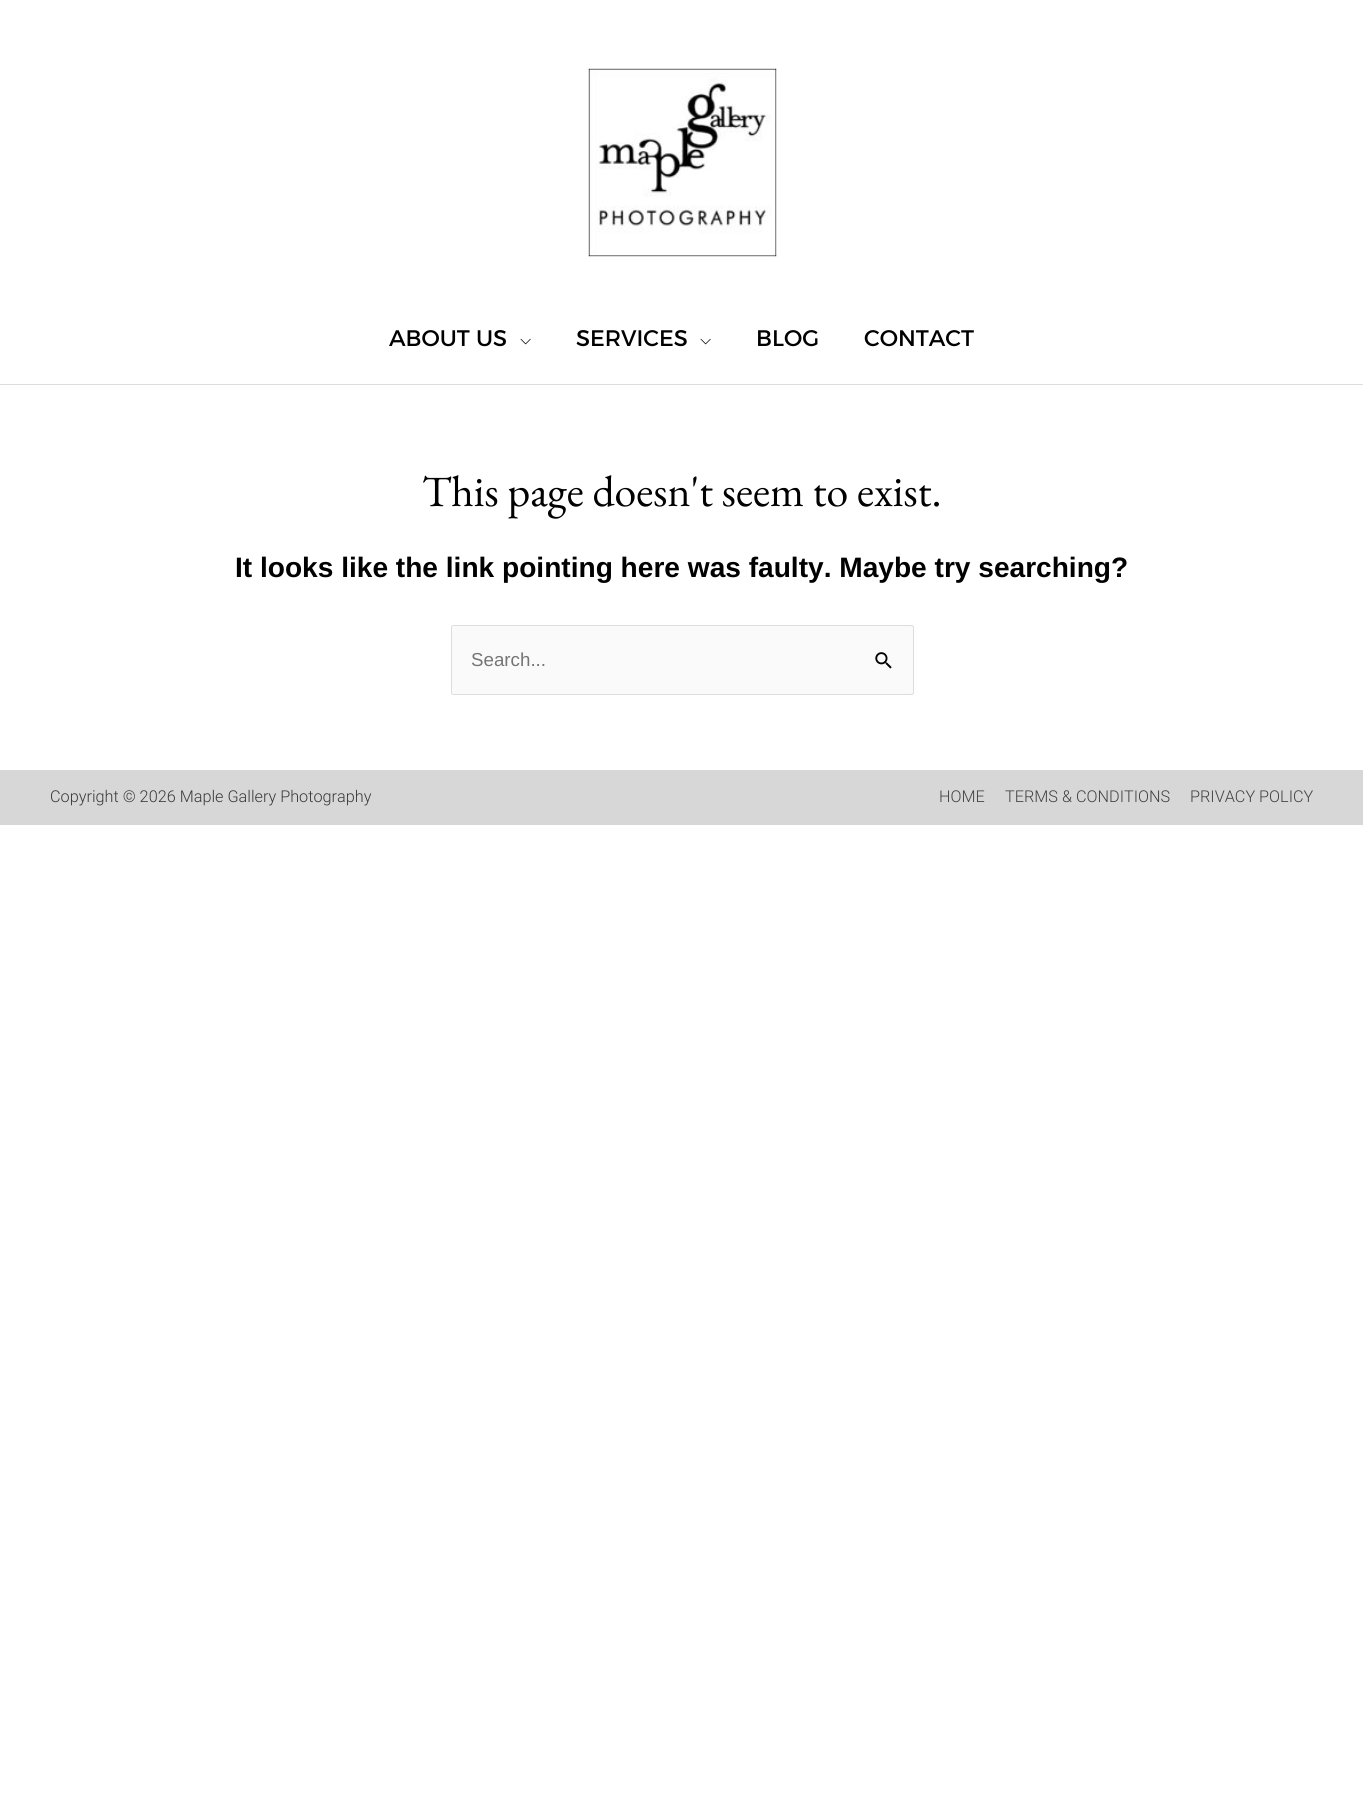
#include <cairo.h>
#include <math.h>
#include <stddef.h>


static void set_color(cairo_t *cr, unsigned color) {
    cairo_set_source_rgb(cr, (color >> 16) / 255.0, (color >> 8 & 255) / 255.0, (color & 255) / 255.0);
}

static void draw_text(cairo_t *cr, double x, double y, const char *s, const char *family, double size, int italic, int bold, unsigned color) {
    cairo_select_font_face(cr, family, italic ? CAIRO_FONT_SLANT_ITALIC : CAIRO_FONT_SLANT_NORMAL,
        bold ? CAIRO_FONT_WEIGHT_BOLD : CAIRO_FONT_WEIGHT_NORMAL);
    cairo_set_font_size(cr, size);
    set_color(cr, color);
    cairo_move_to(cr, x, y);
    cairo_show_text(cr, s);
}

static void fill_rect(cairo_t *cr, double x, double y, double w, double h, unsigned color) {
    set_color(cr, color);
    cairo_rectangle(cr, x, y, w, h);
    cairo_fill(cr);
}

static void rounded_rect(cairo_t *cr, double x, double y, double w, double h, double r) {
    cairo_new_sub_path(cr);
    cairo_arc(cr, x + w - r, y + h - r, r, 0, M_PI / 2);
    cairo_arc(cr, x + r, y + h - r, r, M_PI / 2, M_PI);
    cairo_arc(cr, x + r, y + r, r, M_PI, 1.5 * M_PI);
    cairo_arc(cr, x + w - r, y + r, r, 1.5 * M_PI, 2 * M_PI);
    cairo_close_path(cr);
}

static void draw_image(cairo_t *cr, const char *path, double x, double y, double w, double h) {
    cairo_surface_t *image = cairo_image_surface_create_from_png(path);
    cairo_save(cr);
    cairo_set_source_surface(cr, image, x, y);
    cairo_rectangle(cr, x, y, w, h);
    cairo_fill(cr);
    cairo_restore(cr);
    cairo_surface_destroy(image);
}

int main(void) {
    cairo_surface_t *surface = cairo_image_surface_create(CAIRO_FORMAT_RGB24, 1363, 1813);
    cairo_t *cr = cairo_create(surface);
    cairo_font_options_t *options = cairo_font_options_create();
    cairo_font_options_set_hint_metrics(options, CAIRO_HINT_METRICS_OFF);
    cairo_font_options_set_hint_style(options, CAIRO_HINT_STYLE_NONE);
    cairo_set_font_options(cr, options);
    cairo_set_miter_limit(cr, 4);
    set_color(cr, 0xFFFFFF);
    cairo_paint(cr);
    fill_rect(cr, 0, 384, 1363, 1, 0xDDDDDD);
    draw_image(cr, "assets/img1.png", 588, 68, 189, 189);
    draw_text(cr, 389, 346, "ABOUT US", "Alexandria", 22.5, 0, 0, 0x000000);
    draw_image(cr, "assets/img2.png", 520, 338, 11, 7);
    draw_text(cr, 576, 346, "SERVICES", "Alexandria", 22.5, 0, 0, 0x000000);
    draw_image(cr, "assets/img2.png", 700, 338, 11, 7);
    draw_text(cr, 756, 346, "BLOG", "Alexandria", 22.5, 0, 0, 0x000000);
    draw_text(cr, 864, 346, "CONTACT", "Alexandria", 22.5, 0, 0, 0x000000);
    draw_text(cr, 422, 506, "This page doesn't seem to exist.", "EB Garamond", 43.75, 0, 0, 0x000000);
    draw_text(cr, 235, 577, "It looks like the link pointing here was faulty. Maybe try searching?", "Liberation Sans", 28.1, 0, 1, 0x000000);
    set_color(cr, 0xFAFAFA);
    rounded_rect(cr, 451.5, 625.5, 462, 69, 2);
    cairo_fill_preserve(cr);
    set_color(cr, 0xDDDDDD);
    cairo_set_line_width(cr, 1);
    cairo_stroke(cr);
    draw_text(cr, 471, 666, "Search...", "Liberation Sans", 18.75, 0, 0, 0x757575);
    draw_image(cr, "assets/img3.png", 875, 652, 17, 17);
    fill_rect(cr, 0, 770, 1363, 55, 0xD7D7D7);
    draw_text(cr, 50, 802, "Copyright © 2026 Maple Gallery Photography", "Roboto Light", 16.25, 0, 0, 0x3A3A3A);
    draw_text(cr, 939, 802, "HOME", "Roboto Light", 16.25, 0, 0, 0x424242);
    draw_text(cr, 1005, 802, "TERMS & CONDITIONS", "Roboto Light", 16.25, 0, 0, 0x424242);
    draw_text(cr, 1190, 802, "PRIVACY POLICY", "Roboto Light", 16.25, 0, 0, 0x424242);
    cairo_surface_write_to_png(surface, "output.png");
    cairo_font_options_destroy(options);
    cairo_destroy(cr);
    cairo_surface_destroy(surface);
    return 0;
}
